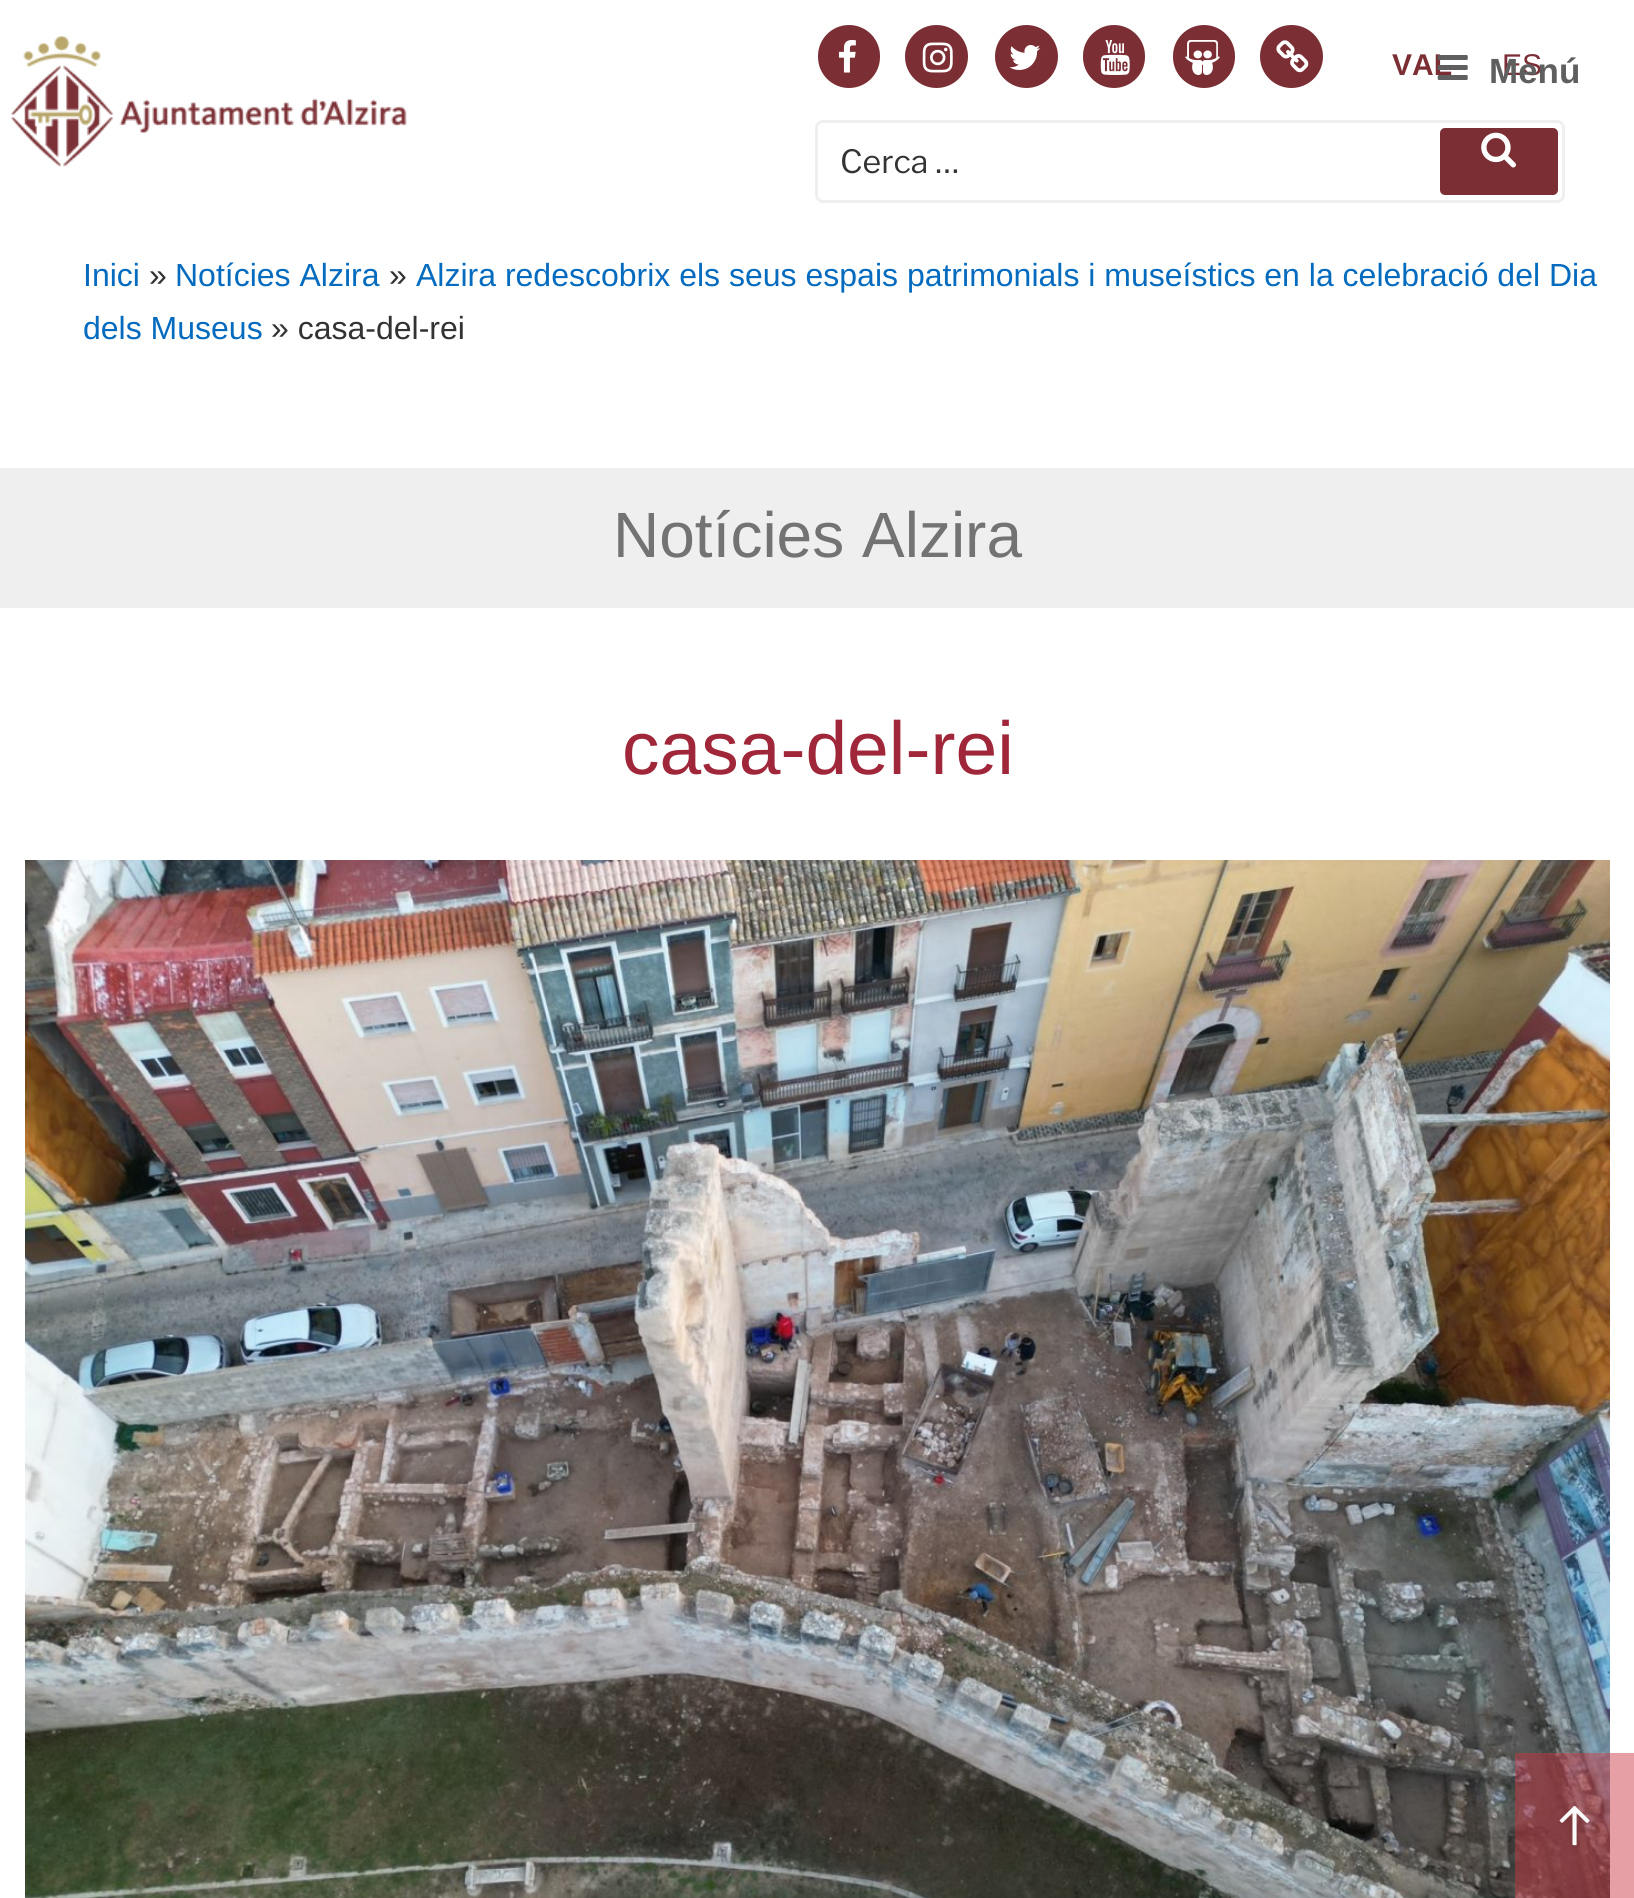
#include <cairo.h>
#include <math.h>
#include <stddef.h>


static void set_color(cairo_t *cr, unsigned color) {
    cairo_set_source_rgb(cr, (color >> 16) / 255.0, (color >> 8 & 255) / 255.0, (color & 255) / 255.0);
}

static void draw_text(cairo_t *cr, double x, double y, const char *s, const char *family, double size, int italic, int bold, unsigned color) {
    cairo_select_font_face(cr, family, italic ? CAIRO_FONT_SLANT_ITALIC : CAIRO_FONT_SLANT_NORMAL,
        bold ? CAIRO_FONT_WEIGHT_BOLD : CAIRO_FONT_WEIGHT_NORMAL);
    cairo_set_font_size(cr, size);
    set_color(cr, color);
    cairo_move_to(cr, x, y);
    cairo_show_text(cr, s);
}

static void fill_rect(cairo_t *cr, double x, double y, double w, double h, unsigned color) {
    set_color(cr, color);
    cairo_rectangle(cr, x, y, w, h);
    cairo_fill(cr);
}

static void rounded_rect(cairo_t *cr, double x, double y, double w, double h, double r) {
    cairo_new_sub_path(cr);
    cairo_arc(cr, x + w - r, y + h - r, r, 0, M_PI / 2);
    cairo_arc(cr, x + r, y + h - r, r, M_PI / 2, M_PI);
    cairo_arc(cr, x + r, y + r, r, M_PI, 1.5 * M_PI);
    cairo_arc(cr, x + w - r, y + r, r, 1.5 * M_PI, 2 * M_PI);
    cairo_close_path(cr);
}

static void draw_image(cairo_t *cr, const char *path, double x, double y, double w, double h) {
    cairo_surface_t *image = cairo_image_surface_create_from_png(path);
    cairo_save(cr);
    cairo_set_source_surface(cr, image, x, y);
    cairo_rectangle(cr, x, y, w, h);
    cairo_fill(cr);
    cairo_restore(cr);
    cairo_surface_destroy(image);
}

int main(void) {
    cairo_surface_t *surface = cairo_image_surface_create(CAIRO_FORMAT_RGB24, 1634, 1898);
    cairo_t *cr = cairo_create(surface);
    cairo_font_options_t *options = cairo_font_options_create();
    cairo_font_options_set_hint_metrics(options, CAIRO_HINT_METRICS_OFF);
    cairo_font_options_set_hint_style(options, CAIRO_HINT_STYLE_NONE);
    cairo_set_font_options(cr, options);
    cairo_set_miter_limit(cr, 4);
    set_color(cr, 0xFFFFFF);
    cairo_paint(cr);
    draw_image(cr, "assets/img1.png", 11, 36, 396, 131);
    set_color(cr, 0x7B2F35);
    rounded_rect(cr, 818, 25, 62, 63, 31);
    cairo_fill(cr);
    draw_image(cr, "assets/img2.png", 838, 40, 18, 33);
    cairo_arc(cr, 936.5, 56.5, 31.5, 0, 2 * M_PI);
    cairo_fill(cr);
    draw_image(cr, "assets/img3.png", 922, 42, 31, 31);
    cairo_arc(cr, 1026.5, 56.5, 31.5, 0, 2 * M_PI);
    cairo_fill(cr);
    draw_image(cr, "assets/img4.png", 1009, 45, 32, 25);
    rounded_rect(cr, 1083, 25, 62, 63, 31);
    cairo_fill(cr);
    draw_image(cr, "assets/img5.png", 1100, 40, 30, 35);
    rounded_rect(cr, 1173, 25, 62, 63, 31);
    cairo_fill(cr);
    draw_image(cr, "assets/img6.png", 1185, 40, 35, 35);
    cairo_arc(cr, 1291.5, 56.5, 31.5, 0, 2 * M_PI);
    cairo_fill(cr);
    draw_image(cr, "assets/img7.png", 1276, 40, 33, 33);
    draw_text(cr, 1392, 75, "VAL", "Liberation Sans", 30, 0, 1, 0x7B2F35);
    draw_text(cr, 1502, 75, "ES", "Liberation Sans", 30, 0, 0, 0x7B2F35);
    rounded_rect(cr, 816.5, 121.5, 747, 80, 6.5);
    set_color(cr, 0xEFEFEF);
    cairo_set_line_width(cr, 3);
    cairo_stroke(cr);
    draw_text(cr, 840, 173, "Cerca …", "Libre Franklin Thin", 32, 0, 0, 0x333333);
    set_color(cr, 0x7B2F35);
    rounded_rect(cr, 1440, 128, 118, 67, 5);
    cairo_fill(cr);
    draw_image(cr, "assets/img8.png", 1481, 132, 35, 36);
    draw_image(cr, "assets/img9.png", 1437, 55, 31, 25);
    draw_text(cr, 1489, 83, "Menú", "Liberation Sans", 35, 0, 1, 0x5F5F5F);
    draw_text(cr, 83, 286, "Inici", "Liberation Sans", 32, 0, 0, 0x056BBF);
    draw_text(cr, 149, 286, "»", "Liberation Sans", 32, 0, 0, 0x333333);
    draw_text(cr, 175, 286, "Notícies Alzira", "Liberation Sans", 32, 0, 0, 0x056BBF);
    draw_text(cr, 389, 286, "»", "Liberation Sans", 32, 0, 0, 0x333333);
    draw_text(cr, 416, 286, "Alzira redescobrix els seus espais patrimonials i museístics en la celebració del Dia", "Liberation Sans", 32, 0, 0, 0x056BBF);
    draw_text(cr, 83, 339, "dels Museus", "Liberation Sans", 32, 0, 0, 0x056BBF);
    draw_text(cr, 271, 339, "» casa-del-rei", "Liberation Sans", 32, 0, 0, 0x333333);
    fill_rect(cr, 0, 468, 1634, 140, 0xEFEFEF);
    draw_text(cr, 613, 557, "Notícies Alzira", "Liberation Sans", 64, 0, 0, 0x737373);
    draw_text(cr, 622, 774, "casa-del-rei", "Liberation Sans", 75, 0, 0, 0xA02739);
    draw_image(cr, "assets/img10.png", 25, 860, 1585, 1038);
    cairo_set_source_rgba(cr, 0.792, 0.208, 0.251, 0.47);
    cairo_rectangle(cr, 1515, 1753, 119, 145);
    cairo_fill(cr);
    draw_image(cr, "assets/img11.png", 1559, 1806, 31, 40);
    cairo_surface_write_to_png(surface, "output.png");
    cairo_font_options_destroy(options);
    cairo_destroy(cr);
    cairo_surface_destroy(surface);
    return 0;
}
